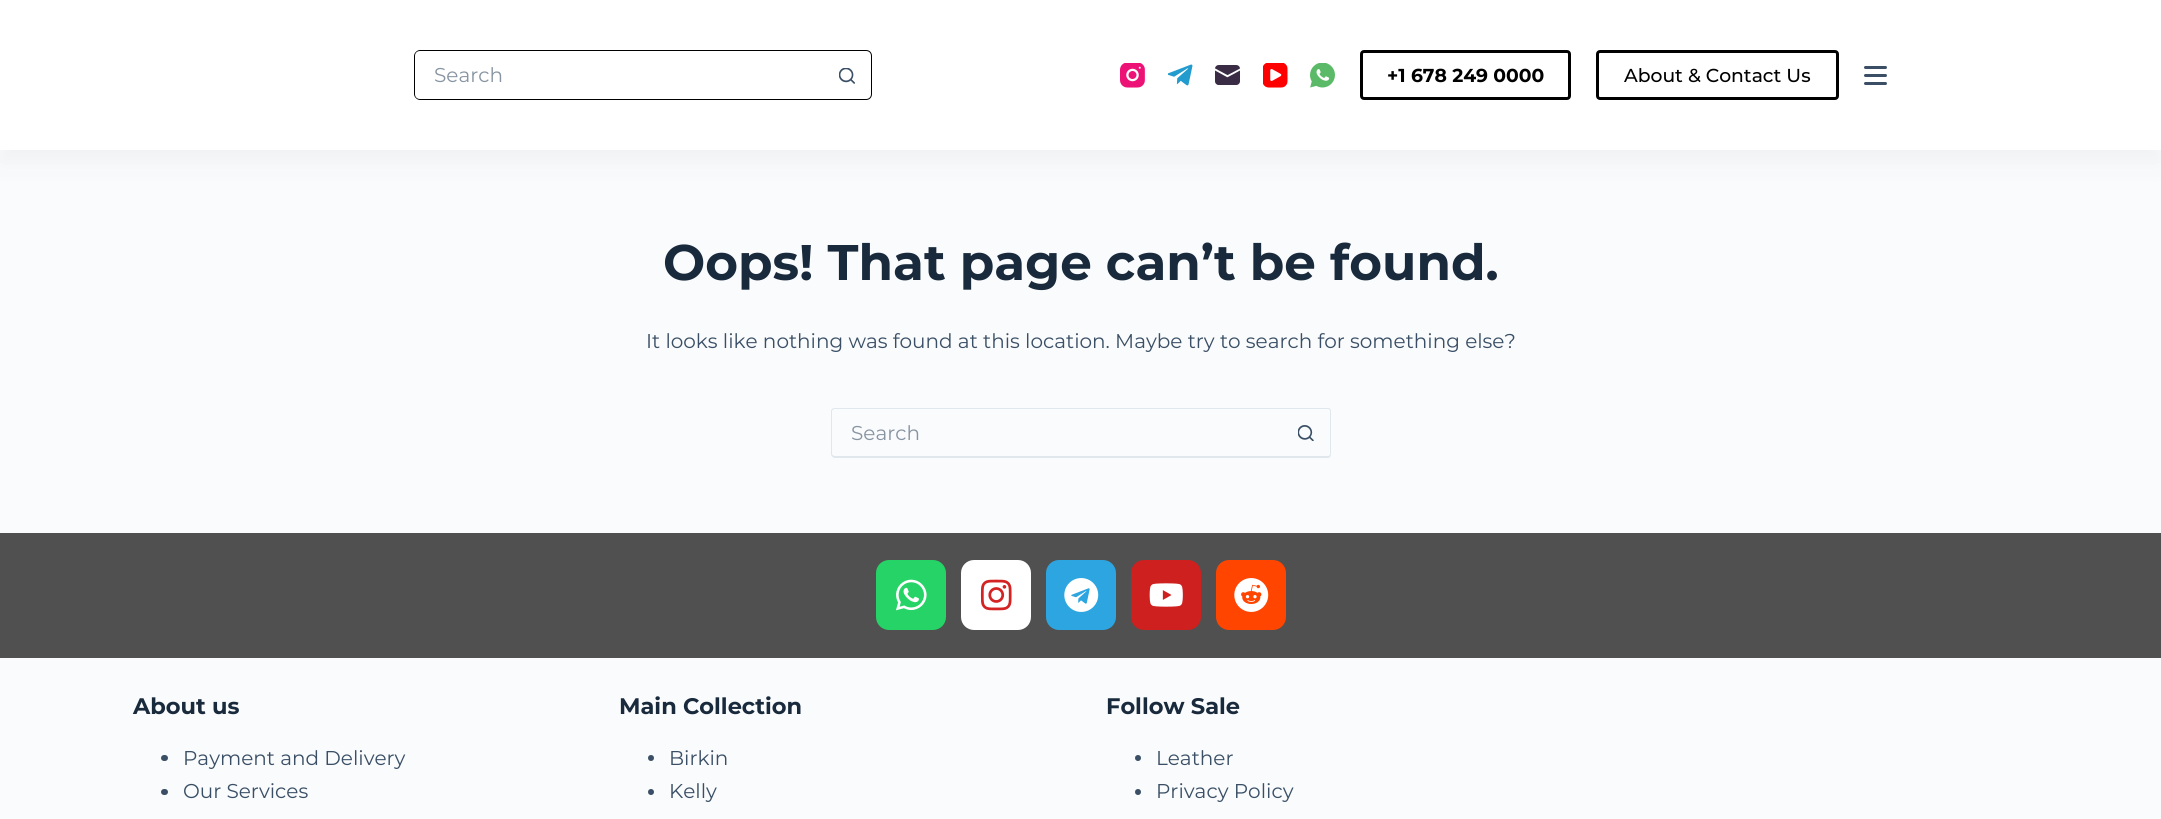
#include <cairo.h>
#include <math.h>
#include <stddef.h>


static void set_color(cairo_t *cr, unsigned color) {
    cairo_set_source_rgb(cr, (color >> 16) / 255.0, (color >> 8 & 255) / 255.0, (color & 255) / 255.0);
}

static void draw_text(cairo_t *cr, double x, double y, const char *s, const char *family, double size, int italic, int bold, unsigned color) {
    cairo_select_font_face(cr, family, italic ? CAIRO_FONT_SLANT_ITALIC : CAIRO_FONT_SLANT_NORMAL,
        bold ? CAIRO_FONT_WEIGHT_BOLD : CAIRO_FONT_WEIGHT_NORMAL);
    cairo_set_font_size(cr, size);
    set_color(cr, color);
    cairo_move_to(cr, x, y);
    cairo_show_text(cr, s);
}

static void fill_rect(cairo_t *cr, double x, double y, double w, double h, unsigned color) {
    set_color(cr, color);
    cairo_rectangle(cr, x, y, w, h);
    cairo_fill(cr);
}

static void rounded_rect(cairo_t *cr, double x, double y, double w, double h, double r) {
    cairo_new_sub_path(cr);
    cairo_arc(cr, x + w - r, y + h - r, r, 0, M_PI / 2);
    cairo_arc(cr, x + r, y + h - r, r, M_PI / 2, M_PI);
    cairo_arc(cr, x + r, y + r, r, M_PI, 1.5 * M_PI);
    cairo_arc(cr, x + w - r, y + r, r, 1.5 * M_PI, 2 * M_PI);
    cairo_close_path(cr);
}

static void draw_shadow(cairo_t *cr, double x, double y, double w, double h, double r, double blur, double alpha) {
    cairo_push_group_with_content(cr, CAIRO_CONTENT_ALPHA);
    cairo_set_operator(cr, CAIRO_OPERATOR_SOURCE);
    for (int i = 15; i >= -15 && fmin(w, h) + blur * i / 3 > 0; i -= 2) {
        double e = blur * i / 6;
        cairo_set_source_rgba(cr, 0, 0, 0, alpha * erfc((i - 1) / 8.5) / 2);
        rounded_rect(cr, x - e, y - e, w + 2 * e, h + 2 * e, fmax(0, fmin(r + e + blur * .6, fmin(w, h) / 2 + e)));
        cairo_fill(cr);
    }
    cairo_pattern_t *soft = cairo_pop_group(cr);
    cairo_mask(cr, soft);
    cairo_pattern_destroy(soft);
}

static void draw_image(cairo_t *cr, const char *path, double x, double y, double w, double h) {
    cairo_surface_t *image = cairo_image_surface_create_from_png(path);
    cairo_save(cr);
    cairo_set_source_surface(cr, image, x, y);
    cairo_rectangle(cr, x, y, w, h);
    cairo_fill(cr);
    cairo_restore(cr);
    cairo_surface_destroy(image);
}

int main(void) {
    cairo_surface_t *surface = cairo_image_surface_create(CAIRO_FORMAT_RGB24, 2161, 819);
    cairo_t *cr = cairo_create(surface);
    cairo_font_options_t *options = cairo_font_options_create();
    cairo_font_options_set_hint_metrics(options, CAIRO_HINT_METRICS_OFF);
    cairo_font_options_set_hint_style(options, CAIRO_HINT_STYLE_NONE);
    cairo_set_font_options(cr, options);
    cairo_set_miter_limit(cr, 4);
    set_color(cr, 0xFAFBFC);
    cairo_paint(cr);
    set_color(cr, 0x2C3E50);
    draw_shadow(cr, 0, 13, 2161, 150, 0, 12.5, 0.05);
    fill_rect(cr, 0, 0, 2161, 150, 0xFFFFFF);
    set_color(cr, 0x000000);
    cairo_set_fill_rule(cr, CAIRO_FILL_RULE_EVEN_ODD);
    cairo_new_path(cr);
    cairo_move_to(cr, 420, 50);
    cairo_line_to(cr, 822, 50);
    cairo_line_to(cr, 822, 100);
    cairo_line_to(cr, 420, 100);
    cairo_curve_to(cr, 417, 100, 414, 97, 414, 94);
    cairo_line_to(cr, 414, 56);
    cairo_curve_to(cr, 414, 53, 417, 50, 420, 50);
    cairo_close_path(cr);
    cairo_move_to(cr, 420, 51);
    cairo_line_to(cr, 822, 51);
    cairo_line_to(cr, 822, 99);
    cairo_line_to(cr, 420, 99);
    cairo_curve_to(cr, 417, 99, 415, 97, 415, 94);
    cairo_line_to(cr, 415, 56);
    cairo_curve_to(cr, 415, 53, 417, 51, 420, 51);
    cairo_close_path(cr);
    cairo_fill(cr);
    draw_text(cr, 434, 82, "Search", "Montserrat", 20, 0, 0, 0x8794A2);
    set_color(cr, 0x000000);
    cairo_new_path(cr);
    cairo_move_to(cr, 822, 50);
    cairo_line_to(cr, 866, 50);
    cairo_curve_to(cr, 870, 50, 872, 53, 872, 56);
    cairo_line_to(cr, 872, 94);
    cairo_curve_to(cr, 872, 97, 870, 100, 866, 100);
    cairo_line_to(cr, 822, 100);
    cairo_close_path(cr);
    cairo_move_to(cr, 822, 51);
    cairo_line_to(cr, 866, 51);
    cairo_curve_to(cr, 869, 51, 871, 53, 871, 56);
    cairo_line_to(cr, 871, 94);
    cairo_curve_to(cr, 871, 97, 869, 99, 866, 99);
    cairo_line_to(cr, 822, 99);
    cairo_close_path(cr);
    cairo_fill(cr);
    draw_image(cr, "assets/img1.png", 839, 68, 16, 16);
    draw_image(cr, "assets/img2.png", 1120, 63, 25, 25);
    draw_image(cr, "assets/img3.png", 1168, 64, 25, 22);
    draw_image(cr, "assets/img4.png", 1215, 65, 25, 20);
    draw_image(cr, "assets/img5.png", 1263, 63, 25, 25);
    draw_image(cr, "assets/img6.png", 1310, 63, 25, 25);
    rounded_rect(cr, 1361.5, 51.5, 208, 47, 2.5);
    cairo_set_line_width(cr, 3);
    cairo_stroke(cr);
    draw_text(cr, 1387, 82, "+1 678 249 0000", "Montserrat", 18.75, 0, 1, 0x000000);
    rounded_rect(cr, 1597.5, 51.5, 240, 47, 2.5);
    cairo_stroke(cr);
    draw_text(cr, 1624, 82, "About & Contact Us", "Montserrat Medium", 18.75, 0, 0, 0x000000);
    set_color(cr, 0x3A4F66);
    rounded_rect(cr, 1864, 66, 23, 3, 1.5);
    cairo_fill(cr);
    rounded_rect(cr, 1864, 74, 23, 3, 1.5);
    cairo_fill(cr);
    rounded_rect(cr, 1864, 82, 23, 3, 1.5);
    cairo_fill(cr);
    draw_text(cr, 663, 280, "Oops! That page can’t be found.", "Montserrat", 50, 0, 1, 0x192A3D);
    draw_text(cr, 646, 348, "It looks like nothing was found at this location. Maybe try to search for something else?", "Montserrat", 20, 0, 0, 0x3A4F66);
    set_color(cr, 0xE1E8ED);
    cairo_new_path(cr);
    cairo_move_to(cr, 835, 408);
    cairo_line_to(cr, 1281, 408);
    cairo_line_to(cr, 1281, 458);
    cairo_line_to(cr, 835, 458);
    cairo_curve_to(cr, 833, 458, 831, 456, 831, 454);
    cairo_line_to(cr, 831, 411);
    cairo_curve_to(cr, 831, 409, 833, 408, 835, 408);
    cairo_close_path(cr);
    cairo_move_to(cr, 835, 409);
    cairo_line_to(cr, 1281, 409);
    cairo_line_to(cr, 1281, 456);
    cairo_line_to(cr, 835, 456);
    cairo_curve_to(cr, 834, 456, 832, 455, 832, 454);
    cairo_line_to(cr, 832, 411);
    cairo_curve_to(cr, 832, 410, 834, 409, 835, 409);
    cairo_close_path(cr);
    cairo_fill(cr);
    draw_text(cr, 851, 440, "Search", "Montserrat", 20, 0, 0, 0x8794A2);
    set_color(cr, 0xE1E8ED);
    cairo_new_path(cr);
    cairo_move_to(cr, 1281, 408);
    cairo_line_to(cr, 1328, 408);
    cairo_curve_to(cr, 1330, 408, 1331, 409, 1331, 411);
    cairo_line_to(cr, 1331, 454);
    cairo_curve_to(cr, 1331, 456, 1330, 458, 1328, 458);
    cairo_line_to(cr, 1281, 458);
    cairo_close_path(cr);
    cairo_move_to(cr, 1281, 409);
    cairo_line_to(cr, 1328, 409);
    cairo_curve_to(cr, 1329, 409, 1330, 410, 1330, 411);
    cairo_line_to(cr, 1330, 454);
    cairo_curve_to(cr, 1330, 455, 1329, 456, 1328, 456);
    cairo_line_to(cr, 1281, 456);
    cairo_close_path(cr);
    cairo_fill(cr);
    draw_image(cr, "assets/img7.png", 1298, 425, 16, 16);
    fill_rect(cr, 0, 533, 2161, 125, 0x505050);
    set_color(cr, 0x25D366);
    rounded_rect(cr, 876, 560, 70, 70, 13);
    cairo_fill(cr);
    draw_image(cr, "assets/img8.png", 896, 579, 31, 32);
    set_color(cr, 0xFFFFFF);
    rounded_rect(cr, 961, 560, 70, 70, 13);
    cairo_fill(cr);
    draw_image(cr, "assets/img9.png", 980, 579, 32, 32);
    set_color(cr, 0x2CA5E0);
    rounded_rect(cr, 1046, 560, 70, 70, 13);
    cairo_fill(cr);
    draw_image(cr, "assets/img10.png", 1064, 578, 35, 34);
    set_color(cr, 0xCD201F);
    rounded_rect(cr, 1131, 560, 70, 70, 13);
    cairo_fill(cr);
    draw_image(cr, "assets/img11.png", 1149, 583, 34, 24);
    set_color(cr, 0xFF4500);
    rounded_rect(cr, 1216, 560, 70, 70, 13);
    cairo_fill(cr);
    draw_image(cr, "assets/img12.png", 1234, 578, 35, 34);
    draw_text(cr, 133, 714, "About us", "Montserrat", 22.5, 0, 1, 0x192A3D);
    set_color(cr, 0x3A4F66);
    rounded_rect(cr, 161, 755, 7, 6, 3);
    cairo_fill(cr);
    draw_text(cr, 183, 765, "Payment and Delivery", "Montserrat", 20, 0, 0, 0x3A4F66);
    rounded_rect(cr, 161, 789, 7, 6, 3);
    cairo_fill(cr);
    draw_text(cr, 183, 798, "Our Services", "Montserrat", 20, 0, 0, 0x3A4F66);
    draw_text(cr, 619, 714, "Main Collection", "Montserrat", 22.5, 0, 1, 0x192A3D);
    set_color(cr, 0x3A4F66);
    cairo_new_path(cr);
    cairo_arc(cr, 651, 758, 3, 0, 2 * M_PI);
    cairo_fill(cr);
    draw_text(cr, 669, 765, "Birkin", "Montserrat", 20, 0, 0, 0x3A4F66);
    cairo_new_path(cr);
    cairo_arc(cr, 651, 792, 3, 0, 2 * M_PI);
    cairo_fill(cr);
    draw_text(cr, 669, 798, "Kelly", "Montserrat", 20, 0, 0, 0x3A4F66);
    draw_text(cr, 1106, 714, "Follow Sale", "Montserrat", 22.5, 0, 1, 0x192A3D);
    set_color(cr, 0x3A4F66);
    cairo_new_path(cr);
    cairo_arc(cr, 1138, 758, 3, 0, 2 * M_PI);
    cairo_fill(cr);
    draw_text(cr, 1156, 765, "Leather", "Montserrat", 20, 0, 0, 0x3A4F66);
    cairo_new_path(cr);
    cairo_arc(cr, 1138, 792, 3, 0, 2 * M_PI);
    cairo_fill(cr);
    draw_text(cr, 1156, 798, "Privacy Policy", "Montserrat", 20, 0, 0, 0x3A4F66);
    cairo_surface_write_to_png(surface, "output.png");
    cairo_font_options_destroy(options);
    cairo_destroy(cr);
    cairo_surface_destroy(surface);
    return 0;
}
